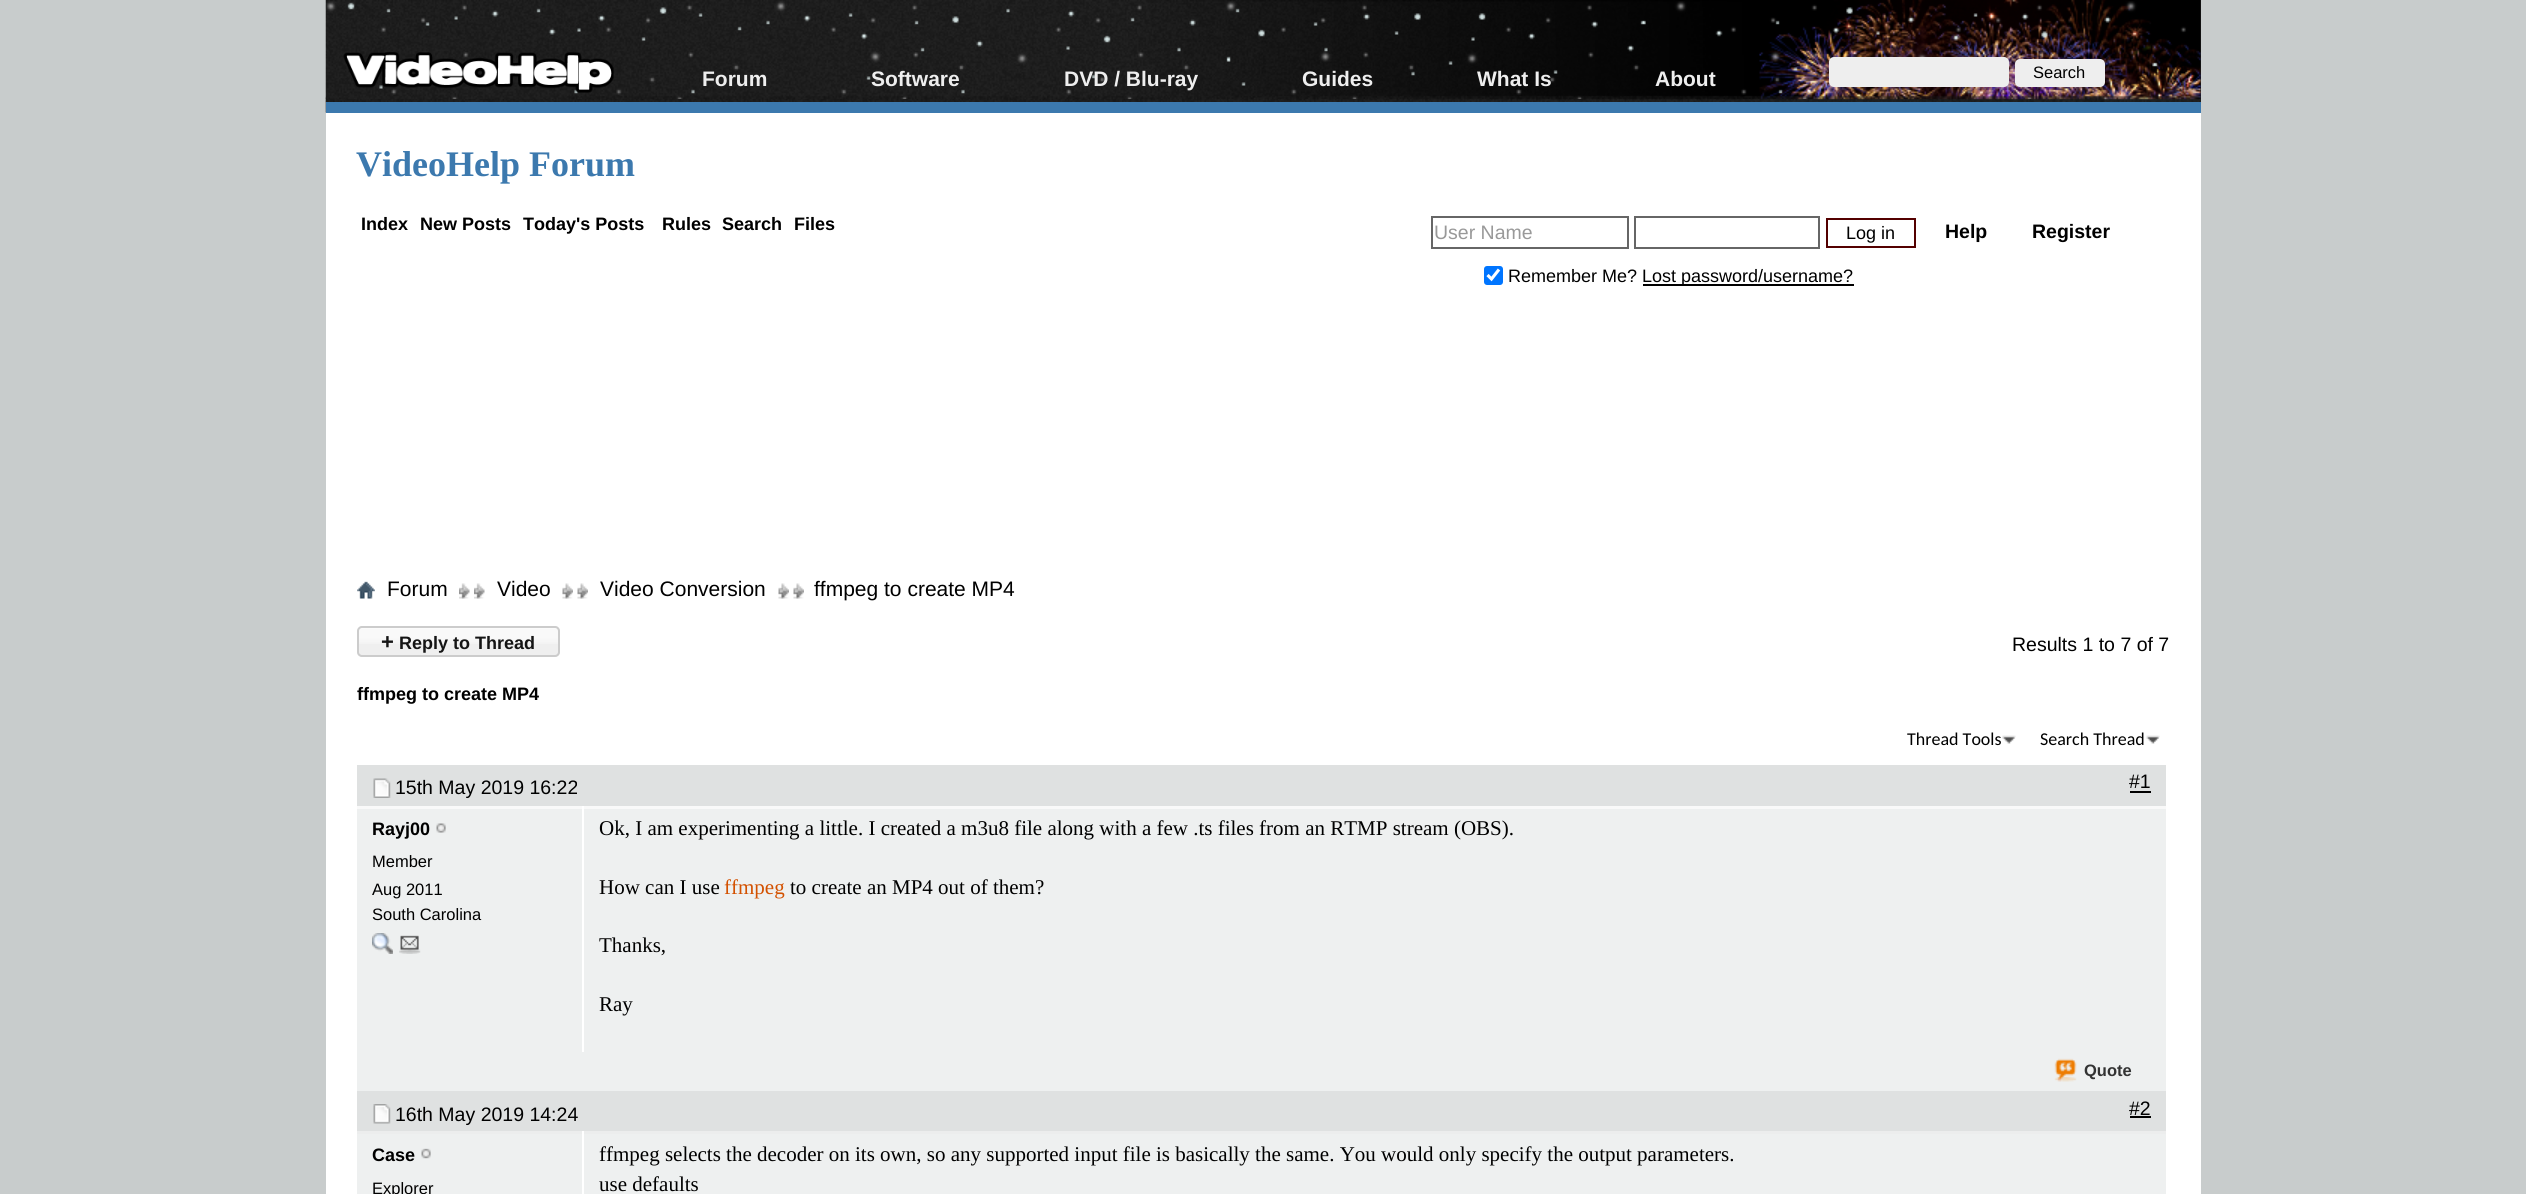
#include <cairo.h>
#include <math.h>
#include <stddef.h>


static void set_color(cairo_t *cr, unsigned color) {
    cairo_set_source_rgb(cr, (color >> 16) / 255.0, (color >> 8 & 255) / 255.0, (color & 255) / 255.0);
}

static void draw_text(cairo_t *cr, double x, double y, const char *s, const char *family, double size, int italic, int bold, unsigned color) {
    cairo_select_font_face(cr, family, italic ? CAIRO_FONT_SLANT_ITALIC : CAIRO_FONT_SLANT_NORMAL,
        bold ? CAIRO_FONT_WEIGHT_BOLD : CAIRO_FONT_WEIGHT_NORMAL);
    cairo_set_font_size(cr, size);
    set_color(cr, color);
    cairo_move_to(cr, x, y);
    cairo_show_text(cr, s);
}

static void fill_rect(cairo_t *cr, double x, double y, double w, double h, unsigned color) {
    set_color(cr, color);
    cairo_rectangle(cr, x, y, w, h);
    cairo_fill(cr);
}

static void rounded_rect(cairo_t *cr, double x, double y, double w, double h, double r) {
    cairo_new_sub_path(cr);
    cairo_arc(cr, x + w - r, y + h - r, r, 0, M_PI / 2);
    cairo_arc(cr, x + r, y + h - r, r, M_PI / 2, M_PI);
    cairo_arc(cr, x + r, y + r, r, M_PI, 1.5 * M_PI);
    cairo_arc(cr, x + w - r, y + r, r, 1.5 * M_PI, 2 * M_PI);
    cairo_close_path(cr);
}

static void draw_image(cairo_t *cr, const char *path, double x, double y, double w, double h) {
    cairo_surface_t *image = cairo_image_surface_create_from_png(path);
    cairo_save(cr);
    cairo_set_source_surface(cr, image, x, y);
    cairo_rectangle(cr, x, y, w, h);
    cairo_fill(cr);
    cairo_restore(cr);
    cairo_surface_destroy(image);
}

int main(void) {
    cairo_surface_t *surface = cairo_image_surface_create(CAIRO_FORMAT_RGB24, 2526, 1194);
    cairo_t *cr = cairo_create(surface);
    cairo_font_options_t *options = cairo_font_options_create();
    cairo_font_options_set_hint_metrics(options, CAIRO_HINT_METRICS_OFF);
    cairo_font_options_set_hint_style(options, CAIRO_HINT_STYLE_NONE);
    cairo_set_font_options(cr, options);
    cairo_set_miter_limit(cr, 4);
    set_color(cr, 0xC8CCCC);
    cairo_paint(cr);
    fill_rect(cr, 326, 0, 1875, 102, 0x222222);
    draw_image(cr, "assets/img2.png", 325, 0, 1876, 113);
    draw_image(cr, "assets/img1.png", 326, 1, 1871, 98);
    fill_rect(cr, 326, 102, 1875, 11, 0x3C79AE);
    draw_image(cr, "assets/img3.png", 343, 52, 271, 41);
    draw_text(cr, 702, 86, "Forum", "Liberation Sans", 21, 0, 1, 0xEEEEEE);
    draw_text(cr, 871, 86, "Software", "Liberation Sans", 21, 0, 1, 0xEEEEEE);
    draw_text(cr, 1064, 86, "DVD / Blu-ray", "Liberation Sans", 21, 0, 1, 0xEEEEEE);
    draw_text(cr, 1302, 86, "Guides", "Liberation Sans", 21, 0, 1, 0xEEEEEE);
    draw_text(cr, 1477, 86, "What Is", "Liberation Sans", 21, 0, 1, 0xEEEEEE);
    draw_text(cr, 1655, 86, "About", "Liberation Sans", 21, 0, 1, 0xEEEEEE);
    rounded_rect(cr, 1829, 57, 180, 30, 5);
    cairo_fill(cr);
    rounded_rect(cr, 2015, 59, 90, 28, 5);
    cairo_fill(cr);
    draw_text(cr, 2033, 78, "Search", "Liberation Sans", 16.5, 0, 0, 0x000000);
    fill_rect(cr, 326, 113, 1875, 1081, 0xFFFFFF);
    draw_text(cr, 356, 176, "VideoHelp Forum", "Liberation Serif", 36, 0, 1, 0x3C79AE);
    draw_text(cr, 361, 230, "Index", "Liberation Sans", 18, 0, 1, 0x000000);
    draw_text(cr, 420, 230, "New Posts", "Liberation Sans", 18, 0, 1, 0x000000);
    draw_text(cr, 523, 230, "Today's Posts", "Liberation Sans", 18, 0, 1, 0x000000);
    draw_text(cr, 662, 230, "Rules", "Liberation Sans", 18, 0, 1, 0x000000);
    draw_text(cr, 722, 230, "Search", "Liberation Sans", 18, 0, 1, 0x000000);
    draw_text(cr, 794, 230, "Files", "Liberation Sans", 18, 0, 1, 0x000000);
    cairo_rectangle(cr, 1432, 217, 196, 31);
    set_color(cr, 0x666666);
    cairo_stroke(cr);
    draw_text(cr, 1434, 239, "User Name", "Liberation Sans", 19.5, 0, 0, 0x999999);
    cairo_rectangle(cr, 1635, 217, 184, 31);
    set_color(cr, 0x666666);
    cairo_stroke(cr);
    cairo_rectangle(cr, 1827, 219, 88, 28);
    set_color(cr, 0x540000);
    cairo_stroke(cr);
    draw_text(cr, 1846, 239, "Log in", "Liberation Sans", 18, 0, 0, 0x000000);
    set_color(cr, 0x0075FF);
    rounded_rect(cr, 1484, 266, 19, 19, 3);
    cairo_fill(cr);
    cairo_new_path(cr);
    cairo_move_to(cr, 1487.5, 275);
    cairo_line_to(cr, 1491.5, 279);
    cairo_line_to(cr, 1499, 269.5);
    set_color(cr, 0xFFFFFF);
    cairo_set_line_width(cr, 3.1);
    cairo_stroke(cr);
    draw_text(cr, 1508, 282, "Remember Me?", "Liberation Sans", 18, 0, 0, 0x000000);
    fill_rect(cr, 1643, 284, 211, 2, 0x000000);
    draw_text(cr, 1642, 282, "Lost password/username?", "Liberation Sans", 18, 0, 0, 0x000000);
    draw_text(cr, 1945, 238, "Help", "Liberation Sans", 19.5, 0, 1, 0x000000);
    draw_text(cr, 2032, 238, "Register", "Liberation Sans", 19.5, 0, 1, 0x000000);
    draw_image(cr, "assets/img4.png", 357, 581, 18, 18);
    draw_image(cr, "assets/img5.png", 474, 583, 11, 16);
    draw_image(cr, "assets/img5.png", 459, 583, 11, 16);
    draw_text(cr, 387, 596, "Forum", "Liberation Sans", 21, 0, 0, 0x000000);
    draw_image(cr, "assets/img6.png", 577, 583, 11, 16);
    draw_image(cr, "assets/img6.png", 562, 583, 11, 16);
    draw_text(cr, 497, 596, "Video", "Liberation Sans", 21, 0, 0, 0x000000);
    draw_image(cr, "assets/img7.png", 793, 583, 11, 16);
    draw_image(cr, "assets/img7.png", 778, 583, 11, 16);
    draw_text(cr, 600, 596, "Video Conversion", "Liberation Sans", 21, 0, 0, 0x000000);
    draw_text(cr, 814, 596, "ffmpeg to create MP4", "Liberation Sans", 21, 0, 0, 0x000000);
    set_color(cr, 0xEFEFEF);
    rounded_rect(cr, 357, 626, 203, 31, 5);
    cairo_fill(cr);
    draw_image(cr, "assets/img8.png", 357, 627, 202, 17);
    rounded_rect(cr, 358, 627, 201, 29, 4);
    set_color(cr, 0xCCCCCC);
    cairo_set_line_width(cr, 2);
    cairo_stroke(cr);
    draw_text(cr, 381, 649, "+", "Liberation Sans", 22, 0, 1, 0x151515);
    draw_text(cr, 399, 649, "Reply to Thread", "Liberation Sans", 18, 0, 1, 0x151515);
    draw_text(cr, 2012, 651, "Results 1 to 7 of 7", "Liberation Sans", 19.5, 0, 0, 0x000000);
    draw_text(cr, 357, 700, "ffmpeg to create MP4", "Liberation Sans", 18, 0, 1, 0x000000);
    draw_text(cr, 1907, 745, "Thread Tools", "Carlito", 18, 0, 0, 0x000000);
    draw_image(cr, "assets/img9.png", 2002, 735, 14, 9);
    draw_text(cr, 2040, 745, "Search Thread", "Carlito", 18, 0, 0, 0x000000);
    draw_image(cr, "assets/img10.png", 2146, 735, 14, 9);
    fill_rect(cr, 357, 765, 1809, 41, 0xDFE1E1);
    draw_image(cr, "assets/img11.png", 373, 778, 18, 20);
    draw_text(cr, 395, 794, "15th May 2019 16:22", "Liberation Sans", 19.5, 0, 0, 0x000000);
    draw_text(cr, 2129, 788, "#1", "Liberation Sans", 19.5, 0, 0, 0x000000);
    fill_rect(cr, 2130, 791, 21, 2, 0x000000);
    fill_rect(cr, 357, 978, 1809, 113, 0xEEF0F0);
    fill_rect(cr, 357, 809, 225, 169, 0xEEF0F0);
    draw_text(cr, 372, 835, "Rayj00", "Liberation Sans", 18, 0, 1, 0x000000);
    draw_image(cr, "assets/img12.png", 436, 823, 10, 10);
    draw_text(cr, 372, 867, "Member", "Liberation Sans", 16.5, 0, 0, 0x000000);
    draw_text(cr, 372, 895, "Aug 2011", "Liberation Sans", 16.5, 0, 0, 0x000000);
    draw_text(cr, 372, 920, "South Carolina", "Liberation Sans", 16.5, 0, 0, 0x000000);
    draw_image(cr, "assets/img13.png", 372, 933, 21, 21);
    draw_image(cr, "assets/img14.png", 399, 935, 22, 19);
    fill_rect(cr, 584, 809, 1582, 169, 0xEEF0F0);
    fill_rect(cr, 357, 806, 1809, 3, 0xF9F9F9);
    fill_rect(cr, 582, 806, 2, 246, 0xFFFFFF);
    draw_text(cr, 599, 835, "Ok, I am experimenting a little. I created a m3u8 file along with a few .ts files from an RTMP stream (OBS).", "Liberation Serif", 21, 0, 0, 0x000000);
    draw_text(cr, 599, 894, "How can I use", "Liberation Serif", 21, 0, 0, 0x000000);
    draw_text(cr, 724, 894, "ffmpeg", "Liberation Serif", 21, 0, 0, 0xD35100);
    draw_text(cr, 790, 894, "to create an MP4 out of them?", "Liberation Serif", 21, 0, 0, 0x000000);
    draw_text(cr, 599, 952, "Thanks,", "Liberation Serif", 21, 0, 0, 0x000000);
    draw_text(cr, 599, 1011, "Ray", "Liberation Serif", 21, 0, 0, 0x000000);
    draw_image(cr, "assets/img15.png", 2054, 1058, 23, 24);
    draw_text(cr, 2084, 1076, "Quote", "Liberation Sans", 16.5, 0, 1, 0x333333);
    fill_rect(cr, 357, 1091, 1809, 40, 0xDFE1E1);
    draw_image(cr, "assets/img16.png", 373, 1104, 18, 20);
    draw_text(cr, 395, 1121, "16th May 2019 14:24", "Liberation Sans", 19.5, 0, 0, 0x000000);
    draw_text(cr, 2129, 1115, "#2", "Liberation Sans", 19.5, 0, 0, 0x000000);
    fill_rect(cr, 2130, 1116, 21, 2, 0x000000);
    fill_rect(cr, 357, 1134, 225, 60, 0xEEF0F0);
    draw_text(cr, 372, 1161, "Case", "Liberation Sans", 18, 0, 1, 0x000000);
    draw_image(cr, "assets/img17.png", 421, 1148, 10, 11);
    draw_text(cr, 372, 1194, "Explorer", "Liberation Sans", 16.5, 0, 0, 0x000000);
    fill_rect(cr, 584, 1134, 1582, 60, 0xEEF0F0);
    fill_rect(cr, 357, 1131, 1809, 3, 0xECEDED);
    fill_rect(cr, 582, 1131, 2, 3, 0xFFFFFF);
    draw_text(cr, 599, 1161, "ffmpeg selects the decoder on its own, so any supported input file is basically the same. You would only specify the output parameters.", "Liberation Serif", 21, 0, 0, 0x000000);
    draw_text(cr, 599, 1191, "use defaults", "Liberation Serif", 21, 0, 0, 0x000000);
    cairo_surface_write_to_png(surface, "output.png");
    cairo_font_options_destroy(options);
    cairo_destroy(cr);
    cairo_surface_destroy(surface);
    return 0;
}
